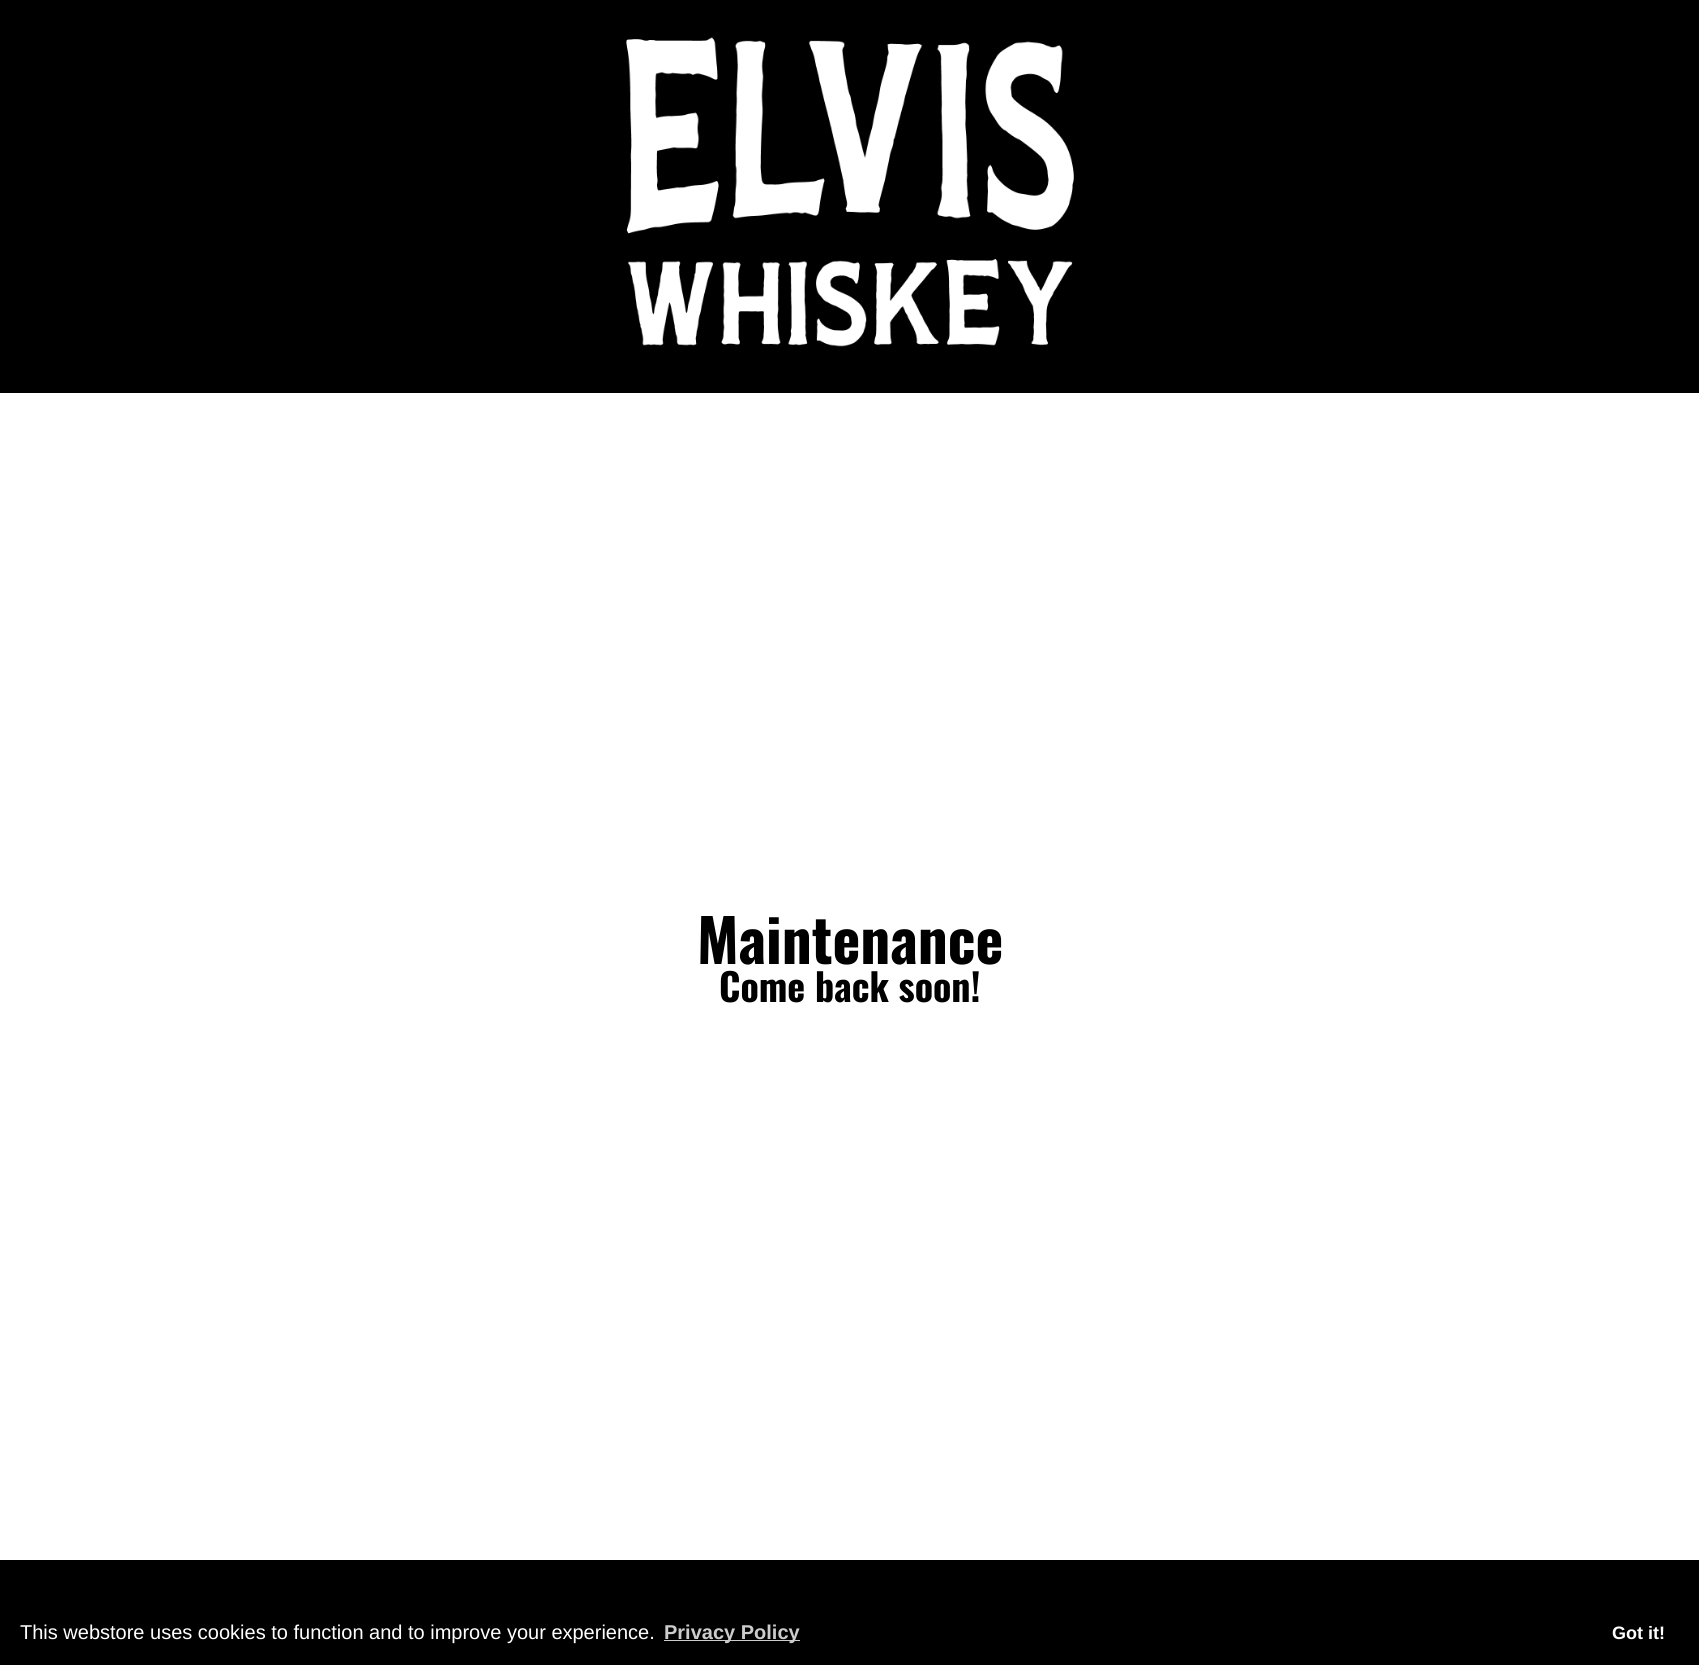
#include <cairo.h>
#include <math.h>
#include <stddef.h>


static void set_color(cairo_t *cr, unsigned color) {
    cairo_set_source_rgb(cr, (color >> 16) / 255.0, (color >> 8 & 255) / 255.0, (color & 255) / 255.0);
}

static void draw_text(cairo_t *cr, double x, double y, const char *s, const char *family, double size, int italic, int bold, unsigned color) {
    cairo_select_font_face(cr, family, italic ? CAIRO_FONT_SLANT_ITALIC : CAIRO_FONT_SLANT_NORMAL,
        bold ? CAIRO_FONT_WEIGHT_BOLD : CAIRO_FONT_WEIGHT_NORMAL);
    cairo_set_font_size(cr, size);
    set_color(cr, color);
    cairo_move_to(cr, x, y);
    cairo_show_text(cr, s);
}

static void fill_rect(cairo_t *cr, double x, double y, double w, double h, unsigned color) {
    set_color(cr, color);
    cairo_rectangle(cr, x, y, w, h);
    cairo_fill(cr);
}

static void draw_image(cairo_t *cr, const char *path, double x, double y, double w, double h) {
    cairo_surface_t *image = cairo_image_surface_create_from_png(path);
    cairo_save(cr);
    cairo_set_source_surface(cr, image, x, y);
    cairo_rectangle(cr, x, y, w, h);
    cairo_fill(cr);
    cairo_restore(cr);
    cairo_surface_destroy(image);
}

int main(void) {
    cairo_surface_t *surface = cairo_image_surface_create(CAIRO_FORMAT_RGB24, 1699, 1665);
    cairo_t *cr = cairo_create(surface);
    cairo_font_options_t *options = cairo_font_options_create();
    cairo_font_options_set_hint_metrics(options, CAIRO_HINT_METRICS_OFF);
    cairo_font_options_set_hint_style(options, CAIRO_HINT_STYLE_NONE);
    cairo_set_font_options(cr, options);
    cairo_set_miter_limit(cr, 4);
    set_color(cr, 0xFFFFFF);
    cairo_paint(cr);
    fill_rect(cr, 0, 0, 1699, 393, 0x000000);
    draw_image(cr, "assets/img1.png", 626, 37, 448, 310);
    draw_text(cr, 697, 964, "Maintenance", "Oswald", 59.25, 0, 1, 0x000000);
    draw_text(cr, 719, 1002, "Come back soon!", "Oswald", 38, 0, 1, 0x000000);
    fill_rect(cr, 0, 1560, 1699, 105, 0x000000);
    draw_text(cr, 20, 1639, "This webstore uses cookies to function and to improve your experience.", "Liberation Sans", 20, 0, 0, 0xFFFFFF);
    fill_rect(cr, 664, 1640, 136, 1, 0xCCCCCC);
    draw_text(cr, 664, 1639, "Privacy Policy", "Liberation Sans", 20, 0, 1, 0xCCCCCC);
    draw_text(cr, 1612, 1639, "Got it!", "Liberation Sans", 18, 0, 1, 0xFFFFFF);
    cairo_surface_write_to_png(surface, "output.png");
    cairo_font_options_destroy(options);
    cairo_destroy(cr);
    cairo_surface_destroy(surface);
    return 0;
}
